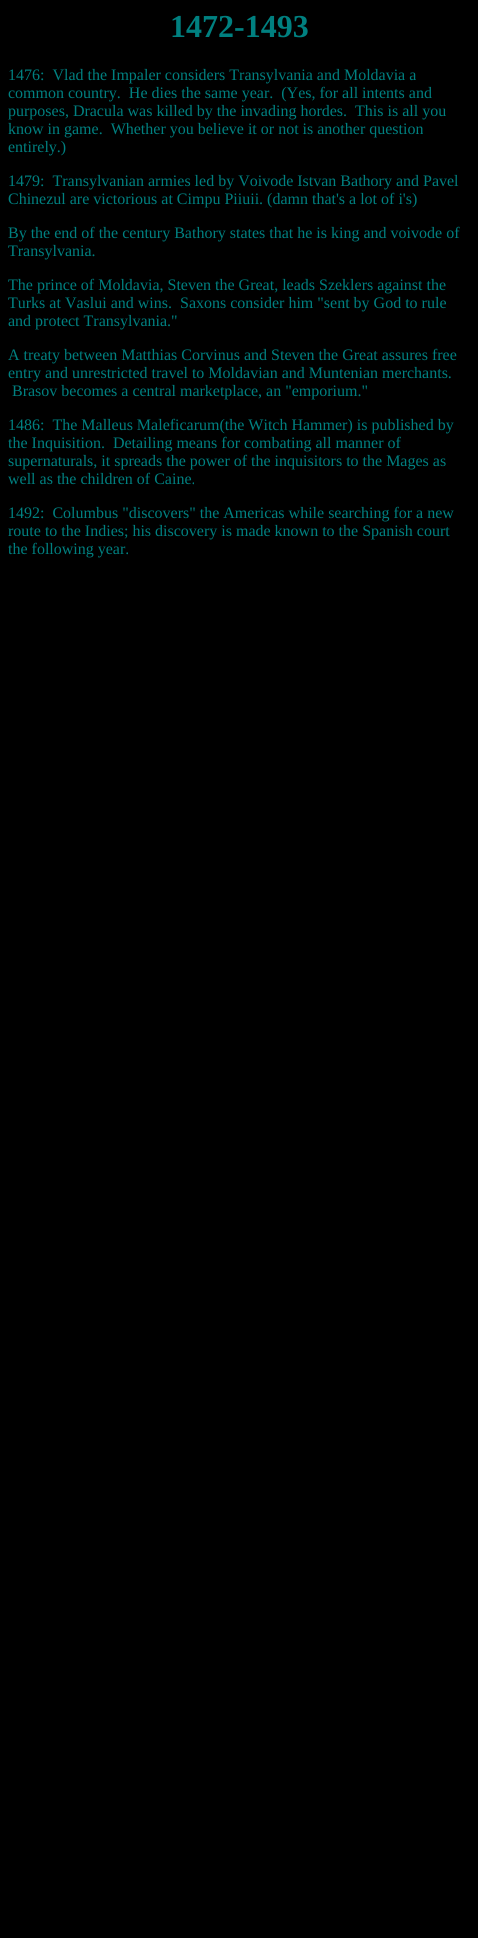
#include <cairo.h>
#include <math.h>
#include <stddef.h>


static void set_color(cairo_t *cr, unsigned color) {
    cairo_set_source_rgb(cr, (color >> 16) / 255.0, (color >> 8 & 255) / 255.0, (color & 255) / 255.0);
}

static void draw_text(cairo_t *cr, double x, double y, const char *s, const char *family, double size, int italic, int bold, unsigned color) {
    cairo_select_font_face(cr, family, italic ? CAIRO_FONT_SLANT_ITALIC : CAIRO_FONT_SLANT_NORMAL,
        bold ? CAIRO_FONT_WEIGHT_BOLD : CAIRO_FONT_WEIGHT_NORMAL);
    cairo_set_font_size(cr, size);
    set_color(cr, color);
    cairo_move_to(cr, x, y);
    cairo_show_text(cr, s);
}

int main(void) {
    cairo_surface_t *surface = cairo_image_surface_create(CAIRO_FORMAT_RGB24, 478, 1938);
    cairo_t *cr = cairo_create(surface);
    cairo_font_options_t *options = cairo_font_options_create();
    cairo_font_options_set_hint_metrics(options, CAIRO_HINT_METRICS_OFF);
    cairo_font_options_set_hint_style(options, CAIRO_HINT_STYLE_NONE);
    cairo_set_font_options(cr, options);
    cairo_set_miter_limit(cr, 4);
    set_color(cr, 0x000000);
    cairo_paint(cr);
    draw_text(cr, 170, 37, "1472-1493", "Liberation Serif", 32, 0, 1, 0x008080);
    draw_text(cr, 8, 80, "1476:  Vlad the Impaler considers Transylvania and Moldavia a", "Liberation Serif", 16, 0, 0, 0x008080);
    draw_text(cr, 8, 98, "common country.  He dies the same year.  (Yes, for all intents and", "Liberation Serif", 16, 0, 0, 0x008080);
    draw_text(cr, 8, 116, "purposes, Dracula was killed by the invading hordes.  This is all you", "Liberation Serif", 16, 0, 0, 0x008080);
    draw_text(cr, 8, 134, "know in game.  Whether you believe it or not is another question", "Liberation Serif", 16, 0, 0, 0x008080);
    draw_text(cr, 8, 152, "entirely.)", "Liberation Serif", 16, 0, 0, 0x008080);
    draw_text(cr, 8, 186, "1479:  Transylvanian armies led by Voivode Istvan Bathory and Pavel", "Liberation Serif", 16, 0, 0, 0x008080);
    draw_text(cr, 8, 204, "Chinezul are victorious at Cimpu Piiuii. (damn that's a lot of i's)", "Liberation Serif", 16, 0, 0, 0x008080);
    draw_text(cr, 8, 238, "By the end of the century Bathory states that he is king and voivode of", "Liberation Serif", 16, 0, 0, 0x008080);
    draw_text(cr, 8, 256, "Transylvania.", "Liberation Serif", 16, 0, 0, 0x008080);
    draw_text(cr, 8, 290, "The prince of Moldavia, Steven the Great, leads Szeklers against the", "Liberation Serif", 16, 0, 0, 0x008080);
    draw_text(cr, 8, 308, "Turks at Vaslui and wins.  Saxons consider him \"sent by God to rule", "Liberation Serif", 16, 0, 0, 0x008080);
    draw_text(cr, 8, 326, "and protect Transylvania.\"", "Liberation Serif", 16, 0, 0, 0x008080);
    draw_text(cr, 8, 360, "A treaty between Matthias Corvinus and Steven the Great assures free", "Liberation Serif", 16, 0, 0, 0x008080);
    draw_text(cr, 8, 378, "entry and unrestricted travel to Moldavian and Muntenian merchants.", "Liberation Serif", 16, 0, 0, 0x008080);
    draw_text(cr, 12, 396, "Brasov becomes a central marketplace, an \"emporium.\"", "Liberation Serif", 16, 0, 0, 0x008080);
    draw_text(cr, 8, 430, "1486:  The Malleus Maleficarum(the Witch Hammer) is published by", "Liberation Serif", 16, 0, 0, 0x008080);
    draw_text(cr, 8, 448, "the Inquisition.  Detailing means for combating all manner of", "Liberation Serif", 16, 0, 0, 0x008080);
    draw_text(cr, 8, 466, "supernaturals, it spreads the power of the inquisitors to the Mages as", "Liberation Serif", 16, 0, 0, 0x008080);
    draw_text(cr, 8, 484, "well as the children of Caine.", "Liberation Serif", 16, 0, 0, 0x008080);
    draw_text(cr, 8, 518, "1492:  Columbus \"discovers\" the Americas while searching for a new", "Liberation Serif", 16, 0, 0, 0x008080);
    draw_text(cr, 8, 536, "route to the Indies; his discovery is made known to the Spanish court", "Liberation Serif", 16, 0, 0, 0x008080);
    draw_text(cr, 8, 554, "the following year.", "Liberation Serif", 16, 0, 0, 0x008080);
    cairo_surface_write_to_png(surface, "output.png");
    cairo_font_options_destroy(options);
    cairo_destroy(cr);
    cairo_surface_destroy(surface);
    return 0;
}
